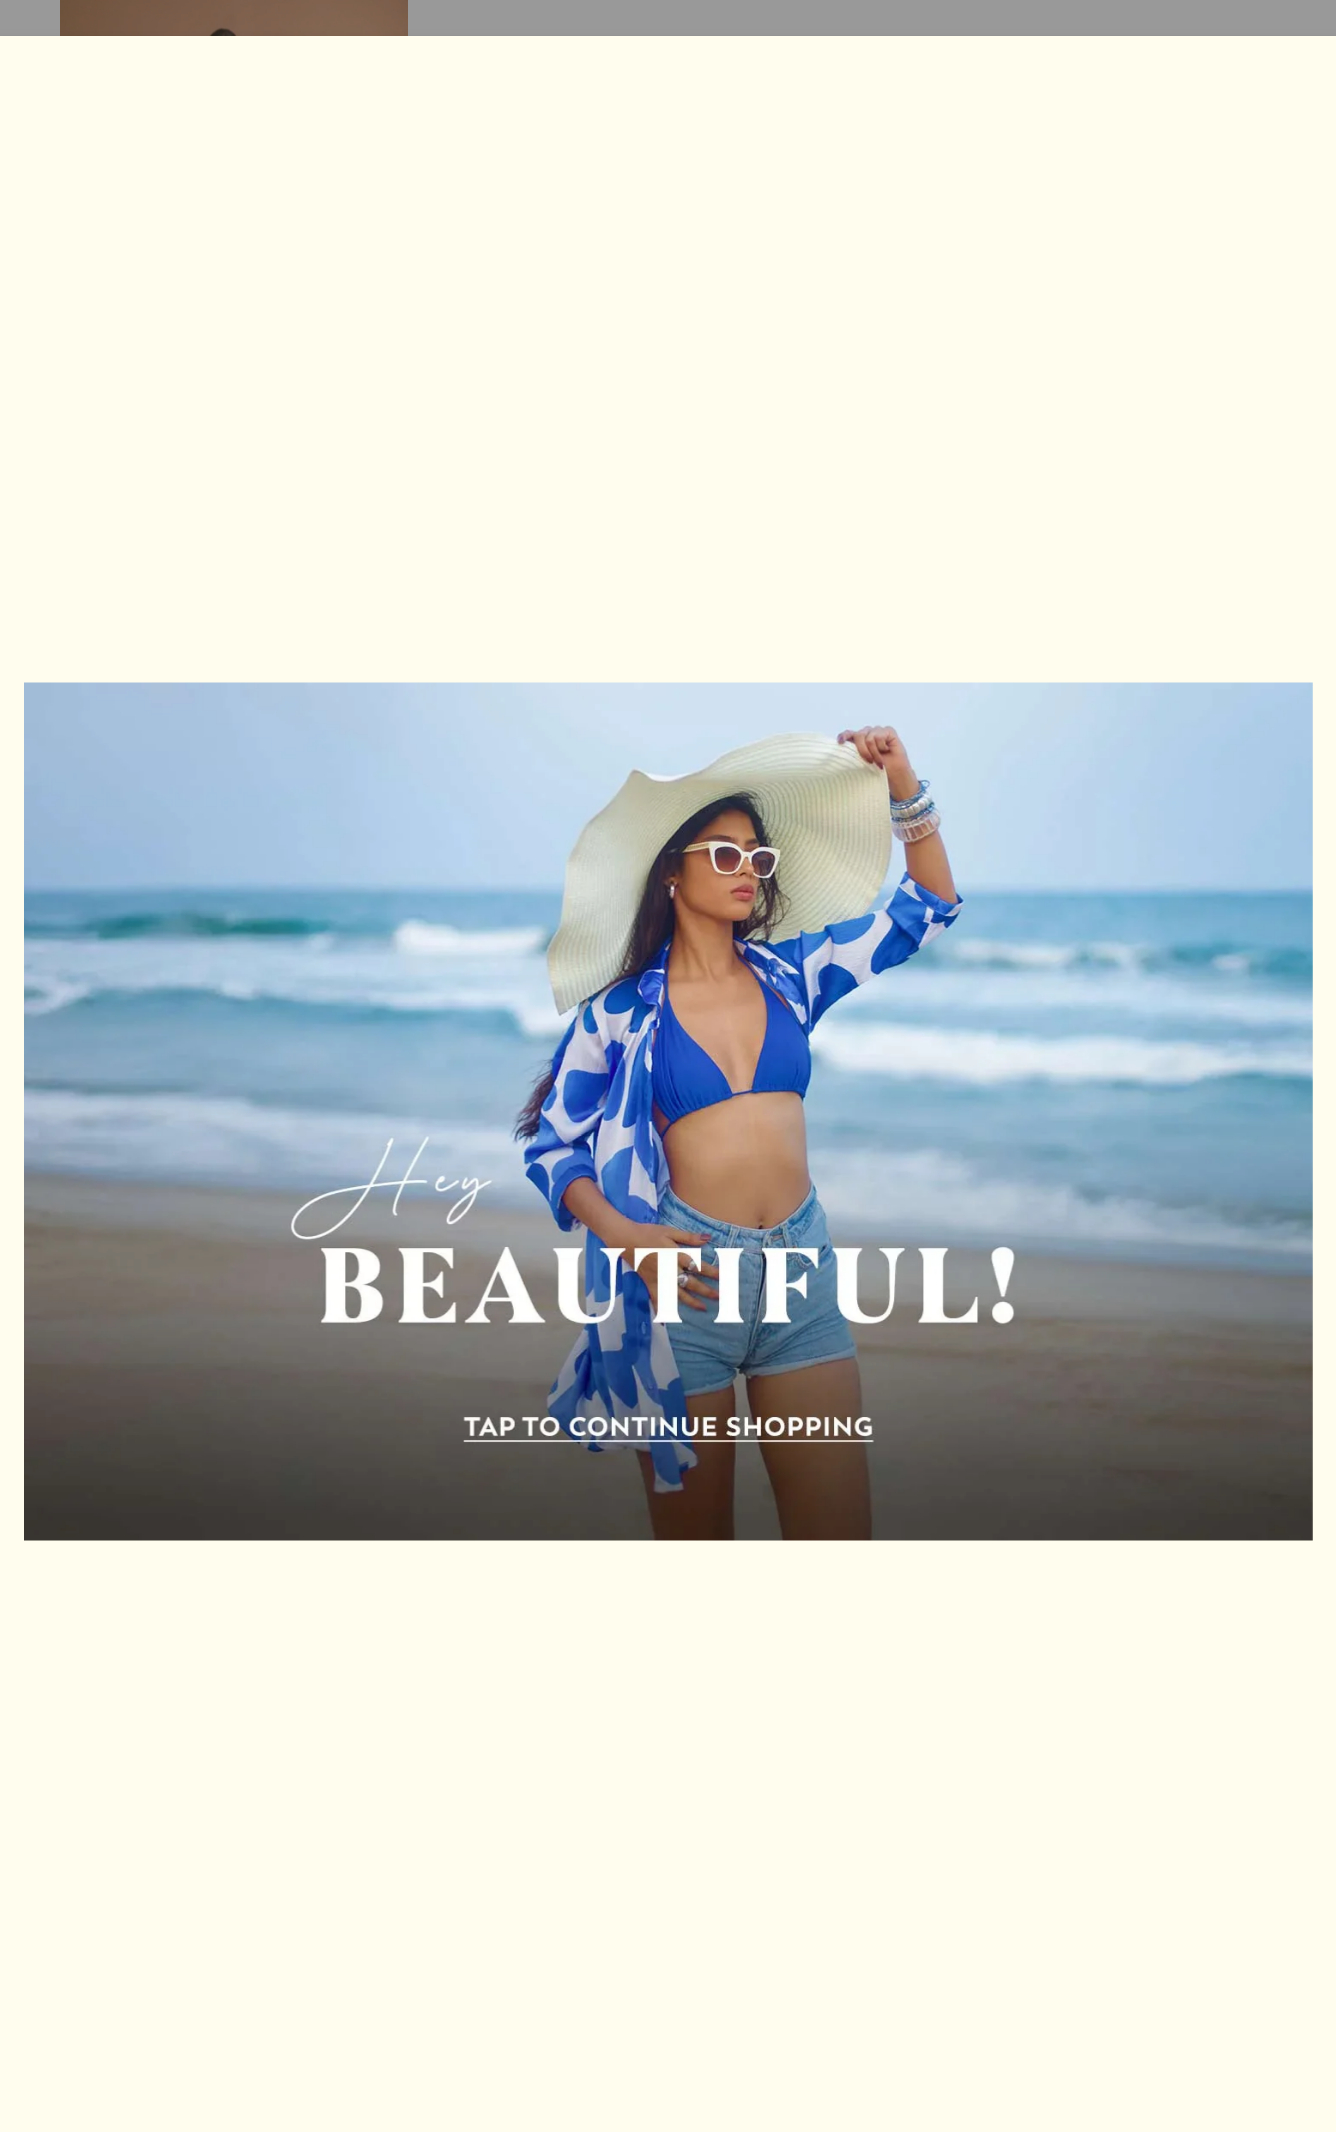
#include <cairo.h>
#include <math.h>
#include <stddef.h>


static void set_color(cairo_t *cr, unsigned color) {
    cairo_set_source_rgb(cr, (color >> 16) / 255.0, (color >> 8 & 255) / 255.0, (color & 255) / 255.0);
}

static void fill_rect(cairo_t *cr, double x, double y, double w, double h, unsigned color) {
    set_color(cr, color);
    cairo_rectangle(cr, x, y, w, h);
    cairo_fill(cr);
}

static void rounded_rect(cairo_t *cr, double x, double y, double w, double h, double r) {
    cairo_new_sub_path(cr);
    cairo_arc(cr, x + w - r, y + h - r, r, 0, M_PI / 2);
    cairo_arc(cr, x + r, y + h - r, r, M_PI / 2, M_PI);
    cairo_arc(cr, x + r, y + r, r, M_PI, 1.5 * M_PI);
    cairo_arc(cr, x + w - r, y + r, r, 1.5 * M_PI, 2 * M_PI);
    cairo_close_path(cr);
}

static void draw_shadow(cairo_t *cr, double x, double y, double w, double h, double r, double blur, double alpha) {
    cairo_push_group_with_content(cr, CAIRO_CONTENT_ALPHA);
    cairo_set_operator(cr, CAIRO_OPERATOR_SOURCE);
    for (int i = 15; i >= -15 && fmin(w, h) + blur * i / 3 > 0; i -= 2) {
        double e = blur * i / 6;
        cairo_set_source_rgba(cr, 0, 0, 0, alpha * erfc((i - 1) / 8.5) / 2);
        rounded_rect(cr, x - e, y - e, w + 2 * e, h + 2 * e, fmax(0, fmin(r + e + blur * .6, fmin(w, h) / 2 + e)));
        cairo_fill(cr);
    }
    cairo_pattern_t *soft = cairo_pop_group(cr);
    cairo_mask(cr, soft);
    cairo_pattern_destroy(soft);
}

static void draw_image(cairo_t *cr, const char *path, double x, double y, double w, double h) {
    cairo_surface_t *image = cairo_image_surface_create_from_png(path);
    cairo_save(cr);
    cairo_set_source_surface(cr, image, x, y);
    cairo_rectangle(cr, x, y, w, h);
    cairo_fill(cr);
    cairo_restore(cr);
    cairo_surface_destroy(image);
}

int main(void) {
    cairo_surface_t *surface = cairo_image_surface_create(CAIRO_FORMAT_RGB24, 1336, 2132);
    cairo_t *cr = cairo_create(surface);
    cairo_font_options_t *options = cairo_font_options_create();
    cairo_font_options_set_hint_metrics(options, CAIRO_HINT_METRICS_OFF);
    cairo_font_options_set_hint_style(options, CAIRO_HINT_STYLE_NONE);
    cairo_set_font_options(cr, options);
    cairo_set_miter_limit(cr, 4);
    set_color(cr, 0x999999);
    cairo_paint(cr);
    draw_image(cr, "assets/img1.png", 60, 0, 348, 36);
    set_color(cr, 0x000000);
    draw_shadow(cr, 0, 42, 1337, 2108, 0, 6, 0.2);
    fill_rect(cr, 0, 36, 1336, 2096, 0xFFFDED);
    draw_image(cr, "assets/img2.png", 24, 682, 1289, 859);
    cairo_surface_write_to_png(surface, "output.png");
    cairo_font_options_destroy(options);
    cairo_destroy(cr);
    cairo_surface_destroy(surface);
    return 0;
}
